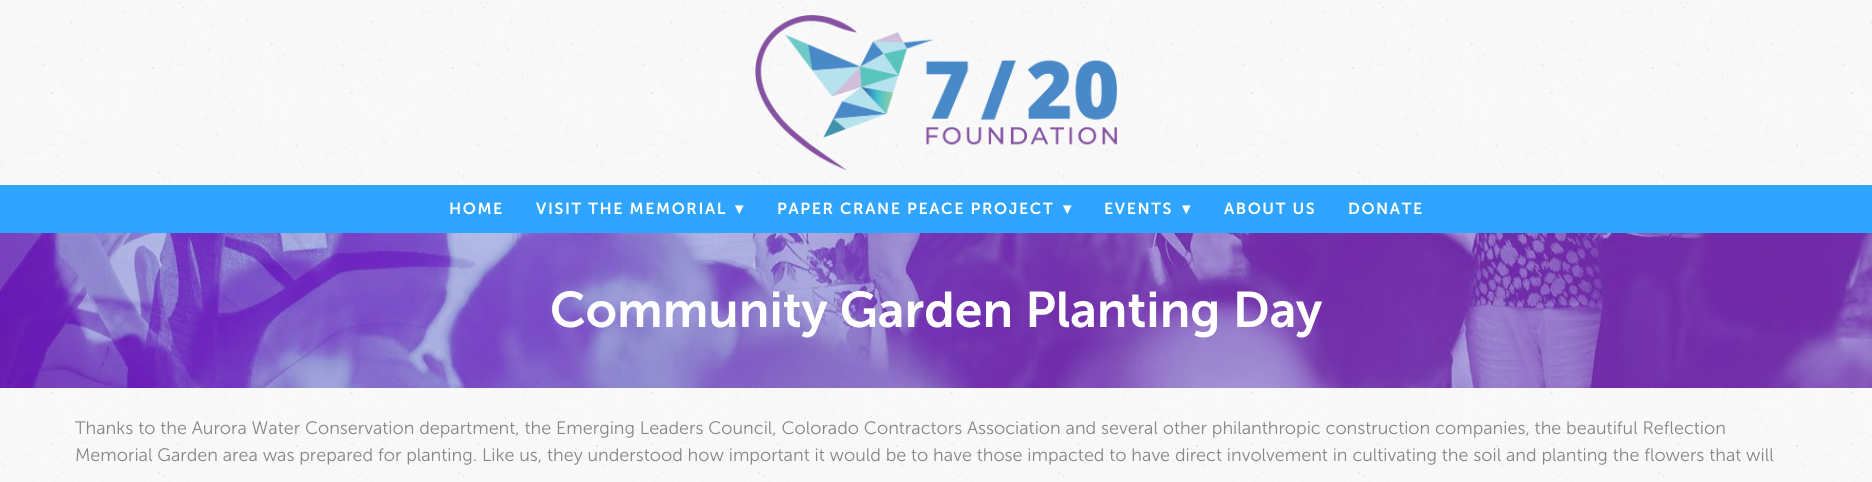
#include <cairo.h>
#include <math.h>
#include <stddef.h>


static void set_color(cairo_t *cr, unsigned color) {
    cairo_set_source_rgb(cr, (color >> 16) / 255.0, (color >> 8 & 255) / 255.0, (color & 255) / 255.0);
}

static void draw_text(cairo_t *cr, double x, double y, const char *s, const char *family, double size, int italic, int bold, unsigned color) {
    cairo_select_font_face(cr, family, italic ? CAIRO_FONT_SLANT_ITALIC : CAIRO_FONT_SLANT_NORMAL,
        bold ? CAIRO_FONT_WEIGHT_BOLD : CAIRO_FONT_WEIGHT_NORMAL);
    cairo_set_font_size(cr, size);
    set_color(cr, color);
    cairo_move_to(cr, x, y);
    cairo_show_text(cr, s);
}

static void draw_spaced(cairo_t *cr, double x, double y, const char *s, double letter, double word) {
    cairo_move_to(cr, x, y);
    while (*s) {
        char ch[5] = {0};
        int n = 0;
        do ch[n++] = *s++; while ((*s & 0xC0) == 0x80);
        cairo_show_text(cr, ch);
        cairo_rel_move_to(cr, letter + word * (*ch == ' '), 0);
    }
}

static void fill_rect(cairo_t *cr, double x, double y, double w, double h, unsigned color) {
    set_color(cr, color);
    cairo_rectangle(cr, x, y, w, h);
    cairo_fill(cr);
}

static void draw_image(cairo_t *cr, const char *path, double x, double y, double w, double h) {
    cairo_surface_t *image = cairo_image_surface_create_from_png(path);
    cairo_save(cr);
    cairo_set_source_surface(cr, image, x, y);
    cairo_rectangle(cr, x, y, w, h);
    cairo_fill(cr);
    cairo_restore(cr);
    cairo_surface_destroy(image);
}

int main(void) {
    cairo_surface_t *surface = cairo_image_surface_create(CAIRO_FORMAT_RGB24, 1872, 482);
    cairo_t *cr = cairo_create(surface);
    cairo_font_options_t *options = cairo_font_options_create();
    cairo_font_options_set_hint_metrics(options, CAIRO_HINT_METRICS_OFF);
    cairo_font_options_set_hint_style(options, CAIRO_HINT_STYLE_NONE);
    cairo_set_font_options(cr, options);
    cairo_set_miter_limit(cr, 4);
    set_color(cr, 0xFFFFFF);
    cairo_paint(cr);
    draw_image(cr, "assets/img1.png", 0, 0, 1872, 482);
    draw_image(cr, "assets/img2.png", 755, 15, 362, 155);
    fill_rect(cr, 0, 185, 1872, 48, 0x30A5FF);
    cairo_select_font_face(cr, "Museo Sans SemiBold", CAIRO_FONT_SLANT_NORMAL, CAIRO_FONT_WEIGHT_NORMAL);
    cairo_set_font_size(cr, 16);
    set_color(cr, 0xFFFFFF);
    draw_spaced(cr, 449, 214, "HOME", 1.6, 0);
    draw_spaced(cr, 536, 214, "VISIT THE MEMORIAL", 1.6, 0);
    cairo_select_font_face(cr, "DejaVu Sans", CAIRO_FONT_SLANT_NORMAL, CAIRO_FONT_WEIGHT_BOLD);
    draw_spaced(cr, 735, 214, "▾", 1.6, 0);
    cairo_select_font_face(cr, "Museo Sans SemiBold", CAIRO_FONT_SLANT_NORMAL, CAIRO_FONT_WEIGHT_NORMAL);
    draw_spaced(cr, 777, 214, "PAPER CRANE PEACE PROJECT", 1.6, 0);
    cairo_select_font_face(cr, "DejaVu Sans", CAIRO_FONT_SLANT_NORMAL, CAIRO_FONT_WEIGHT_BOLD);
    draw_spaced(cr, 1063, 214, "▾", 1.6, 0);
    cairo_select_font_face(cr, "Museo Sans SemiBold", CAIRO_FONT_SLANT_NORMAL, CAIRO_FONT_WEIGHT_NORMAL);
    draw_spaced(cr, 1104, 214, "EVENTS", 1.6, 0);
    cairo_select_font_face(cr, "DejaVu Sans", CAIRO_FONT_SLANT_NORMAL, CAIRO_FONT_WEIGHT_BOLD);
    draw_spaced(cr, 1182, 214, "▾", 1.6, 0);
    cairo_select_font_face(cr, "Museo Sans SemiBold", CAIRO_FONT_SLANT_NORMAL, CAIRO_FONT_WEIGHT_NORMAL);
    draw_spaced(cr, 1224, 214, "ABOUT US", 1.6, 0);
    draw_spaced(cr, 1348, 214, "DONATE", 1.6, 0);
    draw_image(cr, "assets/img3.png", 0, 233, 1872, 155);
    draw_text(cr, 550, 327, "Community Garden Planting Day", "Museo Sans SemiBold", 50, 0, 0, 0xFFFFFF);
    draw_text(cr, 75, 434, "Thanks to the Aurora Water Conservation department, the Emerging Leaders Council, Colorado Contractors Association and several other philanthropic construction companies, the beautiful Reflection", "Museo Sans Light", 18, 0, 0, 0x868686);
    draw_text(cr, 75, 461, "Memorial Garden area was prepared for planting. Like us, they understood how important it would be to have those impacted to have direct involvement in cultivating the soil and planting the flowers that will", "Museo Sans Light", 18, 0, 0, 0x868686);
    cairo_surface_write_to_png(surface, "output.png");
    cairo_font_options_destroy(options);
    cairo_destroy(cr);
    cairo_surface_destroy(surface);
    return 0;
}
